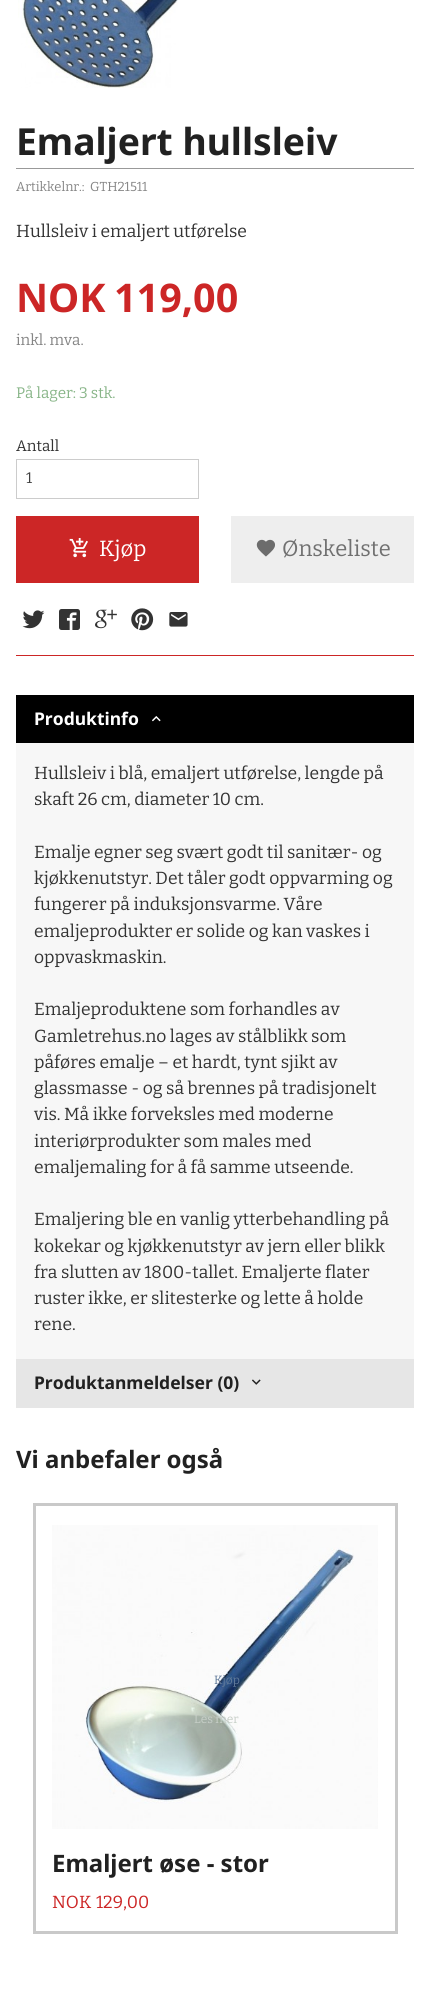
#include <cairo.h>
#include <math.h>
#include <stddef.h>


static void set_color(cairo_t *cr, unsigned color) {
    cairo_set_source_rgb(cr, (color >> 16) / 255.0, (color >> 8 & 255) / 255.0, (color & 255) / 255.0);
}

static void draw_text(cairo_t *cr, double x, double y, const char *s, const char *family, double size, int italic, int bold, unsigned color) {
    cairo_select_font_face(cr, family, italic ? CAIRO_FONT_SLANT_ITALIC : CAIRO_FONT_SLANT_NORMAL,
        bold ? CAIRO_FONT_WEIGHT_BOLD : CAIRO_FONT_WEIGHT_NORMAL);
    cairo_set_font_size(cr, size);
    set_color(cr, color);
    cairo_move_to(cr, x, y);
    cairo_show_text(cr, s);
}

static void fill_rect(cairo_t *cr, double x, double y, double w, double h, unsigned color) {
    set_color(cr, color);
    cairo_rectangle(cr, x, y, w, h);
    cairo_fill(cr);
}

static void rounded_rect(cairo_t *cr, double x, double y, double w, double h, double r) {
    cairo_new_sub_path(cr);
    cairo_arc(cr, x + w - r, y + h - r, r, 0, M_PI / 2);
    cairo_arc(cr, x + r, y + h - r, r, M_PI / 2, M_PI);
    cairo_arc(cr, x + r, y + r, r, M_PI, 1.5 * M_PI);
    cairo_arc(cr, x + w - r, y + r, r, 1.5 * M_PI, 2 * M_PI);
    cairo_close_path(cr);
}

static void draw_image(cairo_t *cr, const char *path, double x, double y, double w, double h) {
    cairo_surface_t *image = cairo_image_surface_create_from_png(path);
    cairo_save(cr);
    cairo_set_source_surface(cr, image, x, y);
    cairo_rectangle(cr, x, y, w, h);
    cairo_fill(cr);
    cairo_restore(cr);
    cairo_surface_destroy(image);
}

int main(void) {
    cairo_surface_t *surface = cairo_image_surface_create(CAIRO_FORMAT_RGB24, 430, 1991);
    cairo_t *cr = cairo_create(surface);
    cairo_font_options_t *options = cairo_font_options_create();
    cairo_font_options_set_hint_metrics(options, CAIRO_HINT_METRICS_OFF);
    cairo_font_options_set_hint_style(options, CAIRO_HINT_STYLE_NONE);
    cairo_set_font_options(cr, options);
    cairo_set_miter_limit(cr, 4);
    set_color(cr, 0xFFFFFF);
    cairo_paint(cr);
    draw_image(cr, "assets/img1.png", 18, 0, 160, 88);
    fill_rect(cr, 16, 168, 398, 1, 0x999999);
    draw_text(cr, 16, 155, "Emaljert hullsleiv", "Noto Sans", 37.25, 0, 1, 0x212121);
    draw_text(cr, 16, 191, "Artikkelnr.:", "Bitter", 13, 0, 0, 0x858585);
    draw_text(cr, 90, 191, "GTH21511", "Bitter", 13, 0, 0, 0x858585);
    draw_text(cr, 16, 237, "Hullsleiv i emaljert utførelse", "Bitter", 17.5, 0, 0, 0x333333);
    draw_text(cr, 16, 312, "NOK", "Noto Sans", 39.5, 0, 1, 0xCC2626);
    draw_text(cr, 114, 312, "119,00", "Noto Sans", 39.5, 0, 1, 0xCC2626);
    draw_text(cr, 16, 345, "inkl. mva.", "Bitter", 15.25, 0, 0, 0x858585);
    draw_text(cr, 16, 398, "På lager: 3 stk.", "Bitter", 15.25, 0, 0, 0x88B588);
    draw_text(cr, 16, 451, "Antall", "Bitter", 15.25, 0, 0, 0x333333);
    cairo_rectangle(cr, 16.5, 459.5, 182, 39);
    set_color(cr, 0xCCCCCC);
    cairo_set_line_width(cr, 1);
    cairo_stroke(cr);
    draw_text(cr, 26, 483, "1", "Bitter", 15.25, 0, 0, 0x404040);
    fill_rect(cr, 16, 516, 183, 67, 0xCC2626);
    draw_image(cr, "assets/img2.png", 69, 538, 19, 20);
    draw_text(cr, 99, 556, "Kjøp", "Bitter", 22, 0, 0, 0xFFFFFF);
    fill_rect(cr, 231, 516, 183, 67, 0xEEEEEE);
    draw_image(cr, "assets/img3.png", 256, 539, 19, 18);
    draw_text(cr, 282, 556, "Ønskeliste", "Bitter", 22, 0, 0, 0x707070);
    draw_image(cr, "assets/img4.png", 22, 610, 23, 19);
    set_color(cr, 0x333333);
    rounded_rect(cr, 59, 609, 21, 21, 2.5);
    cairo_fill(cr);
    draw_image(cr, "assets/img5.png", 66, 612, 11, 18);
    draw_image(cr, "assets/img6.png", 95, 609, 22, 20);
    draw_image(cr, "assets/img7.png", 131, 608, 23, 23);
    draw_image(cr, "assets/img8.png", 169, 612, 19, 15);
    fill_rect(cr, 16, 655, 398, 1, 0xCC2626);
    fill_rect(cr, 16, 743, 398, 616, 0xF7F7F7);
    fill_rect(cr, 16, 695, 398, 48, 0x000000);
    draw_text(cr, 34, 725, "Produktinfo", "Noto Sans", 17.5, 0, 1, 0xFFFFFF);
    draw_image(cr, "assets/img9.png", 152, 716, 9, 6);
    draw_text(cr, 34, 779, "Hullsleiv i blå, emaljert utførelse, lengde på", "Bitter", 17.5, 0, 0, 0x333333);
    draw_text(cr, 34, 805, "skaft 26 cm, diameter 10 cm.", "Bitter", 17.5, 0, 0, 0x333333);
    draw_text(cr, 34, 858, "Emalje egner seg svært godt til sanitær- og", "Bitter", 17.5, 0, 0, 0x333333);
    draw_text(cr, 34, 884, "kjøkkenutstyr. Det tåler godt oppvarming og", "Bitter", 17.5, 0, 0, 0x333333);
    draw_text(cr, 34, 910, "fungerer på induksjonsvarme. Våre", "Bitter", 17.5, 0, 0, 0x333333);
    draw_text(cr, 34, 937, "emaljeprodukter er solide og kan vaskes i", "Bitter", 17.5, 0, 0, 0x333333);
    draw_text(cr, 34, 963, "oppvaskmaskin.", "Bitter", 17.5, 0, 0, 0x333333);
    draw_text(cr, 34, 1015, "Emaljeproduktene som forhandles av", "Bitter", 17.5, 0, 0, 0x333333);
    draw_text(cr, 34, 1042, "Gamletrehus.no lages av stålblikk som", "Bitter", 17.5, 0, 0, 0x333333);
    draw_text(cr, 34, 1068, "påføres emalje – et hardt, tynt sjikt av", "Bitter", 17.5, 0, 0, 0x333333);
    draw_text(cr, 34, 1094, "glassmasse - og så brennes på tradisjonelt", "Bitter", 17.5, 0, 0, 0x333333);
    draw_text(cr, 34, 1120, "vis. Må ikke forveksles med moderne", "Bitter", 17.5, 0, 0, 0x333333);
    draw_text(cr, 34, 1147, "interiørprodukter som males med", "Bitter", 17.5, 0, 0, 0x333333);
    draw_text(cr, 34, 1173, "emaljemaling for å få samme utseende.", "Bitter", 17.5, 0, 0, 0x333333);
    draw_text(cr, 34, 1225, "Emaljering ble en vanlig ytterbehandling på", "Bitter", 17.5, 0, 0, 0x333333);
    draw_text(cr, 34, 1252, "kokekar og kjøkkenutstyr av jern eller blikk", "Bitter", 17.5, 0, 0, 0x333333);
    draw_text(cr, 34, 1278, "fra slutten av 1800-tallet. Emaljerte flater", "Bitter", 17.5, 0, 0, 0x333333);
    draw_text(cr, 34, 1304, "ruster ikke, er slitesterke og lette å holde", "Bitter", 17.5, 0, 0, 0x333333);
    draw_text(cr, 34, 1330, "rene.", "Bitter", 17.5, 0, 0, 0x333333);
    fill_rect(cr, 16, 1359, 398, 49, 0xE6E6E6);
    draw_text(cr, 34, 1389, "Produktanmeldelser (0)", "Noto Sans", 17.5, 0, 1, 0x212121);
    draw_image(cr, "assets/img10.png", 252, 1379, 9, 6);
    draw_text(cr, 16, 1468, "Vi anbefaler også", "Noto Sans", 24, 0, 1, 0x212121);
    cairo_rectangle(cr, 34.5, 1504.5, 362, 428);
    set_color(cr, 0xC9C9C9);
    cairo_set_line_width(cr, 3);
    cairo_stroke(cr);
    draw_image(cr, "assets/img11.png", 52, 1525, 326, 304);
    draw_text(cr, 214, 1684, "Kjøp", "Bitter", 12, 0, 0, 0x60799A);
    draw_text(cr, 194, 1723, "Les mer", "Bitter", 12, 0, 0, 0xC6CEC7);
    draw_text(cr, 52, 1872, "Emaljert øse - stor", "Noto Sans", 24, 0, 1, 0x212121);
    draw_text(cr, 52, 1908, "NOK", "Bitter", 17.5, 0, 0, 0xCC2626);
    draw_text(cr, 96, 1908, "129,00", "Bitter", 17.5, 0, 0, 0xCC2626);
    cairo_surface_write_to_png(surface, "output.png");
    cairo_font_options_destroy(options);
    cairo_destroy(cr);
    cairo_surface_destroy(surface);
    return 0;
}
